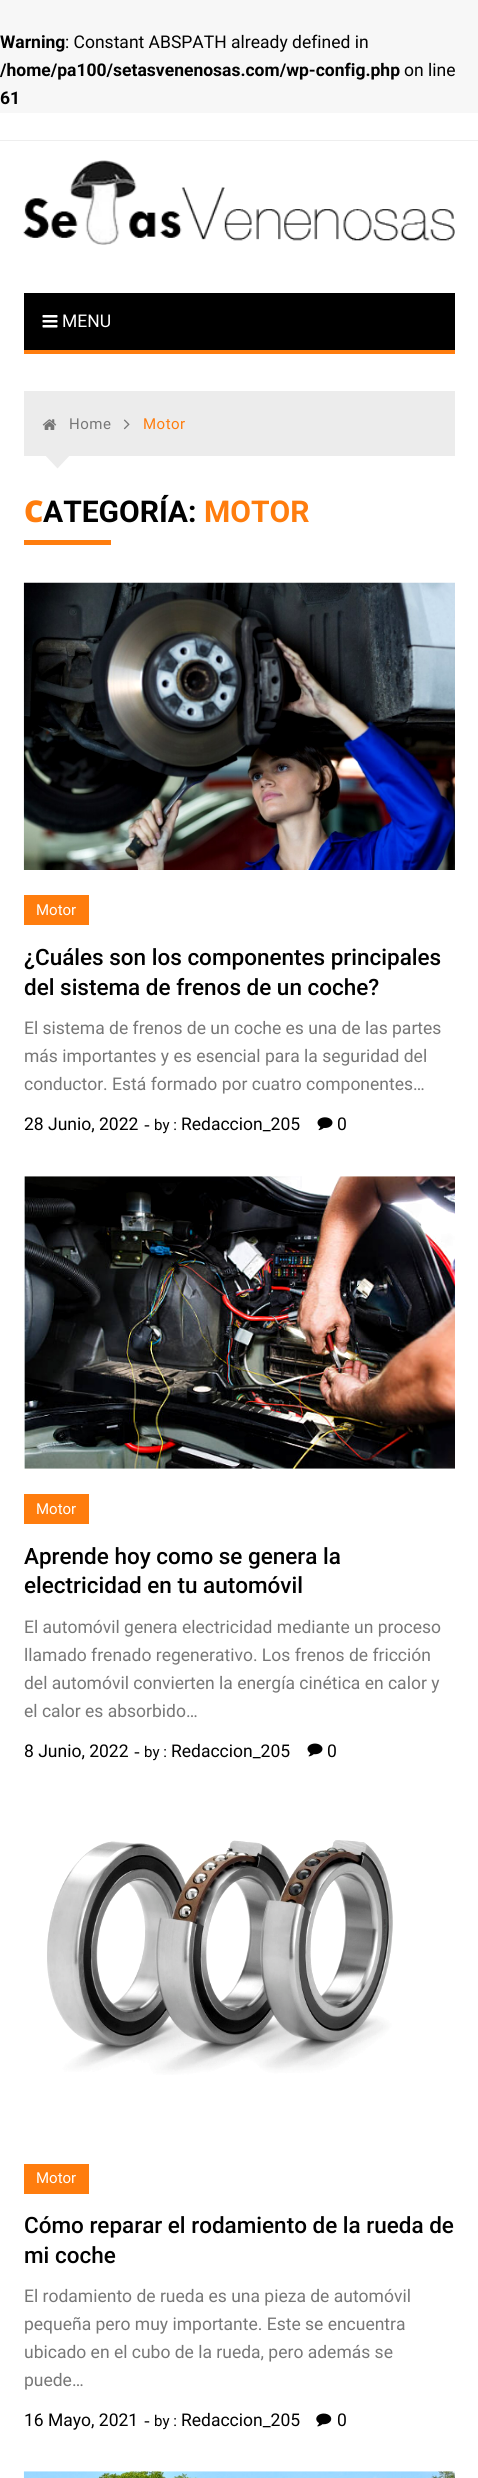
#include <cairo.h>
#include <math.h>
#include <stddef.h>


static void set_color(cairo_t *cr, unsigned color) {
    cairo_set_source_rgb(cr, (color >> 16) / 255.0, (color >> 8 & 255) / 255.0, (color & 255) / 255.0);
}

static void draw_text(cairo_t *cr, double x, double y, const char *s, const char *family, double size, int italic, int bold, unsigned color) {
    cairo_select_font_face(cr, family, italic ? CAIRO_FONT_SLANT_ITALIC : CAIRO_FONT_SLANT_NORMAL,
        bold ? CAIRO_FONT_WEIGHT_BOLD : CAIRO_FONT_WEIGHT_NORMAL);
    cairo_set_font_size(cr, size);
    set_color(cr, color);
    cairo_move_to(cr, x, y);
    cairo_show_text(cr, s);
}

static void draw_spaced(cairo_t *cr, double x, double y, const char *s, double letter, double word) {
    cairo_move_to(cr, x, y);
    while (*s) {
        char ch[5] = {0};
        int n = 0;
        do ch[n++] = *s++; while ((*s & 0xC0) == 0x80);
        cairo_show_text(cr, ch);
        cairo_rel_move_to(cr, letter + word * (*ch == ' '), 0);
    }
}

static void fill_rect(cairo_t *cr, double x, double y, double w, double h, unsigned color) {
    set_color(cr, color);
    cairo_rectangle(cr, x, y, w, h);
    cairo_fill(cr);
}

static void draw_image(cairo_t *cr, const char *path, double x, double y, double w, double h) {
    cairo_surface_t *image = cairo_image_surface_create_from_png(path);
    cairo_save(cr);
    cairo_set_source_surface(cr, image, x, y);
    cairo_rectangle(cr, x, y, w, h);
    cairo_fill(cr);
    cairo_restore(cr);
    cairo_surface_destroy(image);
}

int main(void) {
    cairo_surface_t *surface = cairo_image_surface_create(CAIRO_FORMAT_RGB24, 478, 2478);
    cairo_t *cr = cairo_create(surface);
    cairo_font_options_t *options = cairo_font_options_create();
    cairo_font_options_set_hint_metrics(options, CAIRO_HINT_METRICS_OFF);
    cairo_font_options_set_hint_style(options, CAIRO_HINT_STYLE_NONE);
    cairo_set_font_options(cr, options);
    cairo_set_miter_limit(cr, 4);
    set_color(cr, 0xF7F7F7);
    cairo_paint(cr);
    draw_text(cr, 0, 48, "Warning", "Roboto", 17.5, 0, 1, 0x010101);
    draw_text(cr, 65, 48, ": Constant ABSPATH already defined in", "Roboto", 17.5, 0, 0, 0x010101);
    draw_text(cr, 0, 76, "/home/pa100/setasvenenosas.com/wp-config.php", "Roboto", 17.5, 0, 1, 0x010101);
    draw_text(cr, 404, 76, "on line", "Roboto", 17.5, 0, 0, 0x010101);
    draw_text(cr, 0, 104, "61", "Roboto", 17.5, 0, 1, 0x010101);
    fill_rect(cr, 0, 113, 478, 2365, 0xFFFFFF);
    fill_rect(cr, 0, 140, 478, 1, 0xEEEEEE);
    draw_image(cr, "assets/img1.png", 23, 160, 432, 85);
    fill_rect(cr, 24, 293, 431, 57, 0x000000);
    fill_rect(cr, 24, 350, 431, 4, 0xFF7D0E);
    draw_image(cr, "assets/img2.png", 42, 315, 16, 13);
    draw_text(cr, 62, 327, "MENU", "Roboto", 17.5, 0, 0, 0xFFFFFF);
    fill_rect(cr, 24, 391, 431, 65, 0xECECEC);
    draw_image(cr, "assets/img3.png", 42, 419, 15, 11);
    cairo_set_font_size(cr, 15);
    set_color(cr, 0x777777);
    draw_spaced(cr, 69, 429, "Home", 0.5, 0);
    draw_image(cr, "assets/img4.png", 123, 419, 7, 11);
    set_color(cr, 0xFF7D0E);
    draw_spaced(cr, 143, 429, "Motor", 0.5, 0);
    set_color(cr, 0xECECEC);
    cairo_new_path(cr);
    cairo_move_to(cr, 42.5, 452.5);
    cairo_line_to(cr, 72.5, 452.5);
    cairo_line_to(cr, 57.5, 468.5);
    cairo_close_path(cr);
    cairo_fill(cr);
    draw_text(cr, 24, 522, "C", "Noto Sans Black", 30, 0, 0, 0xFF7D0E);
    draw_text(cr, 43, 522, "ATEGORÍA:", "Roboto", 30, 0, 1, 0x010101);
    draw_text(cr, 204, 522, "MOTOR", "Roboto", 30, 0, 1, 0xFF7D0E);
    fill_rect(cr, 24, 540, 87, 5, 0xFF7D0E);
    draw_image(cr, "assets/img5.png", 23, 582, 432, 288);
    fill_rect(cr, 24, 895, 65, 30, 0xFF7D0E);
    draw_text(cr, 36, 915, "Motor", "Roboto", 15, 0, 0, 0xFFFFFF);
    draw_text(cr, 24, 965, "¿Cuáles son los componentes principales", "Roboto Medium", 22.5, 0, 0, 0x010101);
    draw_text(cr, 24, 995, "del sistema de frenos de un coche?", "Roboto Medium", 22.5, 0, 0, 0x010101);
    draw_text(cr, 24, 1034, "El sistema de frenos de un coche es una de las partes", "Roboto", 17.5, 0, 0, 0x777777);
    draw_text(cr, 24, 1062, "más importantes y es esencial para la seguridad del", "Roboto", 17.5, 0, 0, 0x777777);
    draw_text(cr, 24, 1090, "conductor. Está formado por cuatro componentes…", "Roboto", 17.5, 0, 0, 0x777777);
    draw_text(cr, 24, 1130, "28 Junio, 2022", "Roboto", 17.5, 0, 0, 0x010101);
    draw_text(cr, 144, 1130, "-", "Liberation Serif", 17.5, 0, 0, 0x010101);
    draw_text(cr, 154, 1130, "by :", "Roboto", 15, 0, 0, 0x010101);
    draw_text(cr, 181, 1130, "Redaccion_205", "Roboto", 17.5, 0, 0, 0x010101);
    draw_image(cr, "assets/img6.png", 317, 1117, 16, 14);
    draw_text(cr, 337, 1130, "0", "Roboto", 17.5, 0, 0, 0x010101);
    draw_image(cr, "assets/img7.png", 24, 1176, 431, 293);
    fill_rect(cr, 24, 1494, 65, 30, 0xFF7D0E);
    draw_text(cr, 36, 1514, "Motor", "Roboto", 15, 0, 0, 0xFFFFFF);
    draw_text(cr, 24, 1564, "Aprende hoy como se genera la", "Roboto Medium", 22.5, 0, 0, 0x010101);
    draw_text(cr, 24, 1593, "electricidad en tu automóvil", "Roboto Medium", 22.5, 0, 0, 0x010101);
    draw_text(cr, 24, 1633, "El automóvil genera electricidad mediante un proceso", "Roboto", 17.5, 0, 0, 0x777777);
    draw_text(cr, 24, 1661, "llamado frenado regenerativo. Los frenos de fricción", "Roboto", 17.5, 0, 0, 0x777777);
    draw_text(cr, 24, 1689, "del automóvil convierten la energía cinética en calor y", "Roboto", 17.5, 0, 0, 0x777777);
    draw_text(cr, 24, 1717, "el calor es absorbido…", "Roboto", 17.5, 0, 0, 0x777777);
    draw_text(cr, 24, 1757, "8 Junio, 2022", "Roboto", 17.5, 0, 0, 0x010101);
    draw_text(cr, 134, 1757, "-", "Liberation Serif", 17.5, 0, 0, 0x010101);
    draw_text(cr, 144, 1757, "by :", "Roboto", 15, 0, 0, 0x010101);
    draw_text(cr, 171, 1757, "Redaccion_205", "Roboto", 17.5, 0, 0, 0x010101);
    draw_image(cr, "assets/img8.png", 307, 1743, 16, 14);
    draw_text(cr, 327, 1757, "0", "Roboto", 17.5, 0, 0, 0x010101);
    draw_image(cr, "assets/img9.png", 47, 1840, 346, 235);
    fill_rect(cr, 24, 2164, 65, 30, 0xFF7D0E);
    draw_text(cr, 36, 2183, "Motor", "Roboto", 15, 0, 0, 0xFFFFFF);
    draw_text(cr, 24, 2233, "Cómo reparar el rodamiento de la rueda de", "Roboto Medium", 22.5, 0, 0, 0x010101);
    draw_text(cr, 24, 2263, "mi coche", "Roboto Medium", 22.5, 0, 0, 0x010101);
    draw_text(cr, 24, 2302, "El rodamiento de rueda es una pieza de automóvil", "Roboto", 17.5, 0, 0, 0x777777);
    draw_text(cr, 24, 2330, "pequeña pero muy importante. Este se encuentra", "Roboto", 17.5, 0, 0, 0x777777);
    draw_text(cr, 24, 2358, "ubicado en el cubo de la rueda, pero además se", "Roboto", 17.5, 0, 0, 0x777777);
    draw_text(cr, 24, 2386, "puede…", "Roboto", 17.5, 0, 0, 0x777777);
    draw_text(cr, 24, 2426, "16 Mayo, 2021", "Roboto", 17.5, 0, 0, 0x010101);
    draw_text(cr, 144, 2426, "-", "Liberation Serif", 17.5, 0, 0, 0x010101);
    draw_text(cr, 154, 2426, "by :", "Roboto", 15, 0, 0, 0x010101);
    draw_text(cr, 181, 2426, "Redaccion_205", "Roboto", 17.5, 0, 0, 0x010101);
    draw_image(cr, "assets/img10.png", 316, 2413, 16, 14);
    draw_text(cr, 337, 2426, "0", "Roboto", 17.5, 0, 0, 0x010101);
    draw_image(cr, "assets/img11.png", 23, 2471, 432, 7);
    cairo_surface_write_to_png(surface, "output.png");
    cairo_font_options_destroy(options);
    cairo_destroy(cr);
    cairo_surface_destroy(surface);
    return 0;
}
